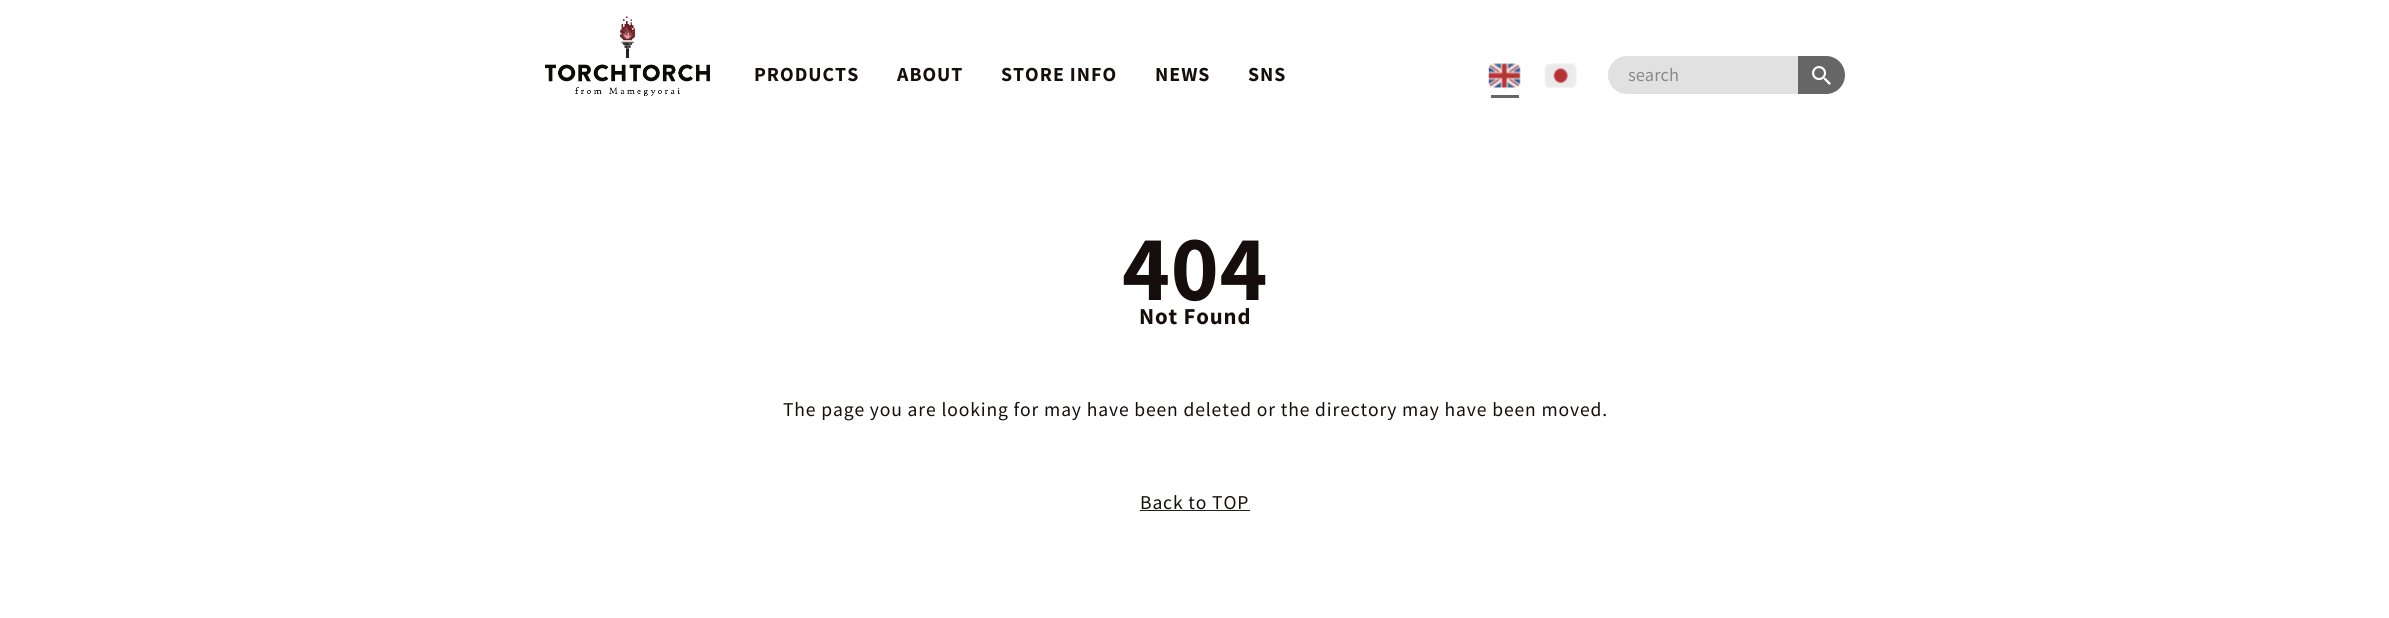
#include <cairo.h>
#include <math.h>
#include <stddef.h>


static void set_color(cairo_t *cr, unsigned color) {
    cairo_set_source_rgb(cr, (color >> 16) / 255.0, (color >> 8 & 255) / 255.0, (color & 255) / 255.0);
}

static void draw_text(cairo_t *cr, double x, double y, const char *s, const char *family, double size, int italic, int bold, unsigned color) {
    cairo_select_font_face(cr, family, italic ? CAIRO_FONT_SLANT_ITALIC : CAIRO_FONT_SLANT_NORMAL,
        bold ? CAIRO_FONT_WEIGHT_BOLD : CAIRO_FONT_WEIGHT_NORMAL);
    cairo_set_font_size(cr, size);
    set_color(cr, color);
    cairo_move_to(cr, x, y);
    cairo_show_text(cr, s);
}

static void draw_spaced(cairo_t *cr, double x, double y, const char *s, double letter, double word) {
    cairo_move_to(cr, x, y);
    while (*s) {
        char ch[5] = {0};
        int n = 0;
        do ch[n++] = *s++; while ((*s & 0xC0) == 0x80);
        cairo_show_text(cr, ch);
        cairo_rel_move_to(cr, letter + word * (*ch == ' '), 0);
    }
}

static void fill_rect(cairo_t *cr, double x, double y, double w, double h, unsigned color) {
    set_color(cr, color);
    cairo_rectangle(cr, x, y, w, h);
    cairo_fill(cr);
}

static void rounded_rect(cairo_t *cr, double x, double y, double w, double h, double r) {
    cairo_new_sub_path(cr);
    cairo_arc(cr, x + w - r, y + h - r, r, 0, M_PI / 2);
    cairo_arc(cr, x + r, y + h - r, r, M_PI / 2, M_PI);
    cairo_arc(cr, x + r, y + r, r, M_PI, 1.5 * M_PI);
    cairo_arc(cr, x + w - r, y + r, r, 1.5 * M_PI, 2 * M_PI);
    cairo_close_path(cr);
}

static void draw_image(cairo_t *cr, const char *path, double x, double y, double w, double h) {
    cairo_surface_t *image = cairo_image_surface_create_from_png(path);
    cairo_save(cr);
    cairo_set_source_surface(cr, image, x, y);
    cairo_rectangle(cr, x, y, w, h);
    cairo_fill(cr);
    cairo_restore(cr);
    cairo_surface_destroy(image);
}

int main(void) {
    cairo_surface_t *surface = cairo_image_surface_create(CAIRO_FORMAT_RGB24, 2389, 618);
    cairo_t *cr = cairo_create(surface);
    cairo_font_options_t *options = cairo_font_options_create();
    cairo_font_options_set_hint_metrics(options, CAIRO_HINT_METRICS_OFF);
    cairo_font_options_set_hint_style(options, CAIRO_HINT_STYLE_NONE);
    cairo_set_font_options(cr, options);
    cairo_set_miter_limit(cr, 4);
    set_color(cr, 0xFFFFFF);
    cairo_paint(cr);
    draw_image(cr, "assets/img1.png", 545, 16, 165, 81);
    cairo_select_font_face(cr, "Noto Sans JP ExtraBold", CAIRO_FONT_SLANT_NORMAL, CAIRO_FONT_WEIGHT_NORMAL);
    cairo_set_font_size(cr, 17.5);
    set_color(cr, 0x150E0D);
    draw_spaced(cr, 754, 81, "PRODUCTS", 1, 0);
    draw_spaced(cr, 897, 81, "ABOUT", 1, 0);
    draw_spaced(cr, 1001, 81, "STORE INFO", 1, 0);
    draw_spaced(cr, 1155, 81, "NEWS", 1, 0);
    draw_spaced(cr, 1248, 81, "SNS", 1, 0);
    draw_image(cr, "assets/img2.png", 1488, 63, 33, 25);
    fill_rect(cr, 1491, 95, 28, 3, 0x666666);
    draw_image(cr, "assets/img3.png", 1544, 63, 33, 25);
    cairo_save(cr);
    rounded_rect(cr, 1608, 56, 237, 38, 19);
    cairo_clip(cr);
    set_color(cr, 0xE1E1E2);
    cairo_new_path(cr);
    cairo_move_to(cr, 1627, 56);
    cairo_line_to(cr, 1830, 56);
    cairo_line_to(cr, 1830, 94);
    cairo_line_to(cr, 1627, 94);
    cairo_curve_to(cr, 1616.5, 94, 1608, 85.5, 1608, 75);
    cairo_curve_to(cr, 1608, 64.5, 1616.5, 56, 1627, 56);
    cairo_close_path(cr);
    cairo_fill(cr);
    cairo_restore(cr);
    draw_text(cr, 1628, 81, "search", "Noto Sans JP", 16.5, 0, 0, 0x898989);
    set_color(cr, 0x666666);
    cairo_new_path(cr);
    cairo_move_to(cr, 1798, 56);
    cairo_line_to(cr, 1826, 56);
    cairo_curve_to(cr, 1836.5, 56, 1845, 64.5, 1845, 75);
    cairo_curve_to(cr, 1845, 85.5, 1836.5, 94, 1826, 94);
    cairo_line_to(cr, 1798, 94);
    cairo_close_path(cr);
    cairo_fill(cr);
    draw_image(cr, "assets/img4.png", 1812, 66, 19, 19);
    cairo_select_font_face(cr, "Noto Sans JP ExtraBold", CAIRO_FONT_SLANT_NORMAL, CAIRO_FONT_WEIGHT_NORMAL);
    cairo_set_font_size(cr, 80);
    set_color(cr, 0x150E0D);
    draw_spaced(cr, 1122, 300, "404", 0.88, 0);
    cairo_set_font_size(cr, 20);
    draw_spaced(cr, 1139, 324, "Not Found", 0.88, 0);
    cairo_select_font_face(cr, "Noto Sans JP", CAIRO_FONT_SLANT_NORMAL, CAIRO_FONT_WEIGHT_NORMAL);
    cairo_set_font_size(cr, 17.5);
    draw_spaced(cr, 783, 416, "The page you are looking for may have been deleted or the directory may have been moved.", 0.88, 0);
    fill_rect(cr, 1140, 510, 110, 1, 0x212121);
    set_color(cr, 0x150E0D);
    draw_spaced(cr, 1140, 509, "Back to TOP", 0.88, 0);
    cairo_surface_write_to_png(surface, "output.png");
    cairo_font_options_destroy(options);
    cairo_destroy(cr);
    cairo_surface_destroy(surface);
    return 0;
}
